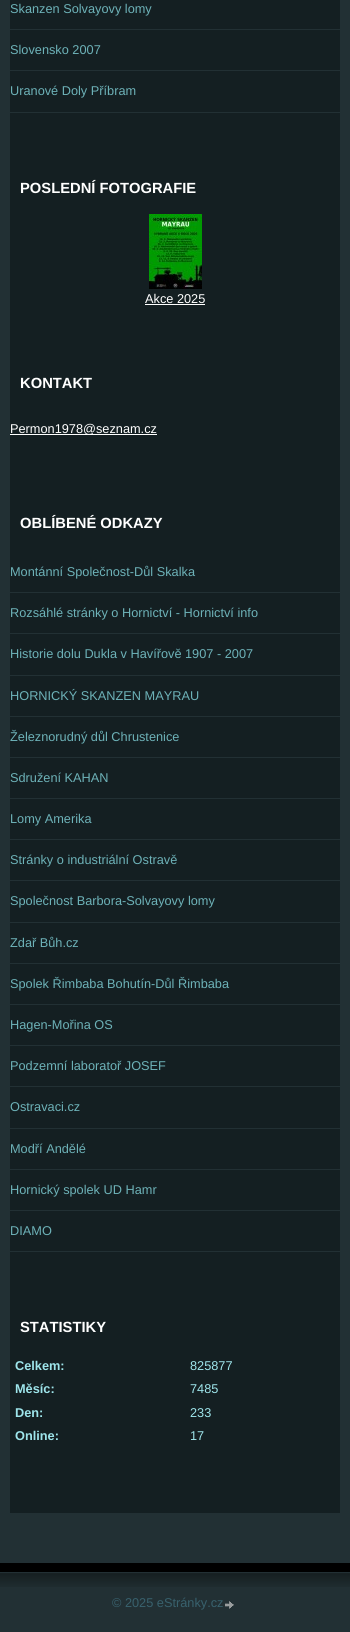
#include <cairo.h>
#include <math.h>
#include <stddef.h>


static void set_color(cairo_t *cr, unsigned color) {
    cairo_set_source_rgb(cr, (color >> 16) / 255.0, (color >> 8 & 255) / 255.0, (color & 255) / 255.0);
}

static void draw_text(cairo_t *cr, double x, double y, const char *s, const char *family, double size, int italic, int bold, unsigned color) {
    cairo_select_font_face(cr, family, italic ? CAIRO_FONT_SLANT_ITALIC : CAIRO_FONT_SLANT_NORMAL,
        bold ? CAIRO_FONT_WEIGHT_BOLD : CAIRO_FONT_WEIGHT_NORMAL);
    cairo_set_font_size(cr, size);
    set_color(cr, color);
    cairo_move_to(cr, x, y);
    cairo_show_text(cr, s);
}

static void fill_rect(cairo_t *cr, double x, double y, double w, double h, unsigned color) {
    set_color(cr, color);
    cairo_rectangle(cr, x, y, w, h);
    cairo_fill(cr);
}

static void draw_image(cairo_t *cr, const char *path, double x, double y, double w, double h) {
    cairo_surface_t *image = cairo_image_surface_create_from_png(path);
    cairo_save(cr);
    cairo_set_source_surface(cr, image, x, y);
    cairo_rectangle(cr, x, y, w, h);
    cairo_fill(cr);
    cairo_restore(cr);
    cairo_surface_destroy(image);
}

int main(void) {
    cairo_surface_t *surface = cairo_image_surface_create(CAIRO_FORMAT_RGB24, 350, 1632);
    cairo_t *cr = cairo_create(surface);
    cairo_font_options_t *options = cairo_font_options_create();
    cairo_font_options_set_hint_metrics(options, CAIRO_HINT_METRICS_OFF);
    cairo_font_options_set_hint_style(options, CAIRO_HINT_STYLE_NONE);
    cairo_set_font_options(cr, options);
    cairo_set_miter_limit(cr, 4);
    set_color(cr, 0x223034);
    cairo_paint(cr);
    fill_rect(cr, 10, 0, 330, 1513, 0x141F22);
    fill_rect(cr, 10, 29, 330, 1, 0x223034);
    draw_text(cr, 10, 13, "Skanzen Solvayovy lomy", "Liberation Sans", 12.75, 0, 0, 0x6DB2B8);
    fill_rect(cr, 10, 70, 330, 1, 0x223034);
    draw_text(cr, 10, 54, "Slovensko 2007", "Liberation Sans", 12.75, 0, 0, 0x6DB2B8);
    fill_rect(cr, 10, 112, 330, 1, 0x223034);
    draw_text(cr, 10, 95, "Uranové Doly Příbram", "Liberation Sans", 12.75, 0, 0, 0x6DB2B8);
    draw_text(cr, 20, 193, "POSLEDNÍ FOTOGRAFIE", "Liberation Sans", 14.75, 0, 1, 0xFFFFFF);
    draw_image(cr, "assets/img1.png", 149, 214, 53, 75);
    draw_text(cr, 145, 303, "Akce 2025", "Liberation Sans", 12.75, 0, 0, 0xFFFFFF);
    fill_rect(cr, 145, 304, 60, 1, 0xFFFFFF);
    draw_text(cr, 20, 388, "KONTAKT", "Liberation Sans", 14.75, 0, 1, 0xFFFFFF);
    fill_rect(cr, 10, 434, 147, 1, 0xFFFFFF);
    draw_text(cr, 10, 433, "Permon1978@seznam.cz", "Liberation Sans", 12.75, 0, 0, 0xFFFFFF);
    draw_text(cr, 20, 528, "OBLÍBENÉ ODKAZY", "Liberation Sans", 14.75, 0, 1, 0xFFFFFF);
    fill_rect(cr, 10, 592, 330, 1, 0x223034);
    draw_text(cr, 10, 576, "Montánní Společnost-Důl Skalka", "Liberation Sans", 12.75, 0, 0, 0x6DB2B8);
    fill_rect(cr, 10, 633, 330, 1, 0x223034);
    draw_text(cr, 10, 617, "Rozsáhlé stránky o Hornictví - Hornictví info", "Liberation Sans", 12.75, 0, 0, 0x6DB2B8);
    fill_rect(cr, 10, 675, 330, 1, 0x223034);
    draw_text(cr, 10, 658, "Historie dolu Dukla v Havířově 1907 - 2007", "Liberation Sans", 12.75, 0, 0, 0x6DB2B8);
    fill_rect(cr, 10, 716, 330, 1, 0x223034);
    draw_text(cr, 10, 700, "HORNICKÝ SKANZEN MAYRAU", "Liberation Sans", 12.75, 0, 0, 0x6DB2B8);
    fill_rect(cr, 10, 757, 330, 1, 0x223034);
    draw_text(cr, 10, 741, "Železnorudný důl Chrustenice", "Liberation Sans", 12.75, 0, 0, 0x6DB2B8);
    fill_rect(cr, 10, 798, 330, 1, 0x223034);
    draw_text(cr, 10, 782, "Sdružení KAHAN", "Liberation Sans", 12.75, 0, 0, 0x6DB2B8);
    fill_rect(cr, 10, 839, 330, 1, 0x223034);
    draw_text(cr, 10, 823, "Lomy Amerika", "Liberation Sans", 12.75, 0, 0, 0x6DB2B8);
    fill_rect(cr, 10, 880, 330, 1, 0x223034);
    draw_text(cr, 10, 864, "Stránky o industriální Ostravě", "Liberation Sans", 12.75, 0, 0, 0x6DB2B8);
    fill_rect(cr, 10, 922, 330, 1, 0x223034);
    draw_text(cr, 10, 905, "Společnost Barbora-Solvayovy lomy", "Liberation Sans", 12.75, 0, 0, 0x6DB2B8);
    fill_rect(cr, 10, 963, 330, 1, 0x223034);
    draw_text(cr, 10, 947, "Zdař Bůh.cz", "Liberation Sans", 12.75, 0, 0, 0x6DB2B8);
    fill_rect(cr, 10, 1004, 330, 1, 0x223034);
    draw_text(cr, 10, 988, "Spolek Řimbaba Bohutín-Důl Řimbaba", "Liberation Sans", 12.75, 0, 0, 0x6DB2B8);
    fill_rect(cr, 10, 1045, 330, 1, 0x223034);
    draw_text(cr, 10, 1029, "Hagen-Mořina OS", "Liberation Sans", 12.75, 0, 0, 0x6DB2B8);
    fill_rect(cr, 10, 1086, 330, 1, 0x223034);
    draw_text(cr, 10, 1070, "Podzemní laboratoř JOSEF", "Liberation Sans", 12.75, 0, 0, 0x6DB2B8);
    fill_rect(cr, 10, 1128, 330, 1, 0x223034);
    draw_text(cr, 10, 1111, "Ostravaci.cz", "Liberation Sans", 12.75, 0, 0, 0x6DB2B8);
    fill_rect(cr, 10, 1169, 330, 1, 0x223034);
    draw_text(cr, 10, 1153, "Modří Andělé", "Liberation Sans", 12.75, 0, 0, 0x6DB2B8);
    fill_rect(cr, 10, 1210, 330, 1, 0x223034);
    draw_text(cr, 10, 1194, "Hornický spolek UD Hamr", "Liberation Sans", 12.75, 0, 0, 0x6DB2B8);
    fill_rect(cr, 10, 1251, 330, 1, 0x223034);
    draw_text(cr, 10, 1235, "DIAMO", "Liberation Sans", 12.75, 0, 0, 0x6DB2B8);
    draw_text(cr, 20, 1332, "STATISTIKY", "Liberation Sans", 14.75, 0, 1, 0xFFFFFF);
    draw_text(cr, 15, 1370, "Celkem:", "Liberation Sans", 12.75, 0, 1, 0x9EE5EB);
    draw_text(cr, 190, 1370, "825877", "Liberation Sans", 12.75, 0, 0, 0x9EE5EB);
    draw_text(cr, 15, 1393, "Měsíc:", "Liberation Sans", 12.75, 0, 1, 0x9EE5EB);
    draw_text(cr, 190, 1393, "7485", "Liberation Sans", 12.75, 0, 0, 0x9EE5EB);
    draw_text(cr, 15, 1417, "Den:", "Liberation Sans", 12.75, 0, 1, 0x9EE5EB);
    draw_text(cr, 190, 1417, "233", "Liberation Sans", 12.75, 0, 0, 0x9EE5EB);
    draw_text(cr, 15, 1440, "Online:", "Liberation Sans", 12.75, 0, 1, 0x9EE5EB);
    draw_text(cr, 190, 1440, "17", "Liberation Sans", 12.75, 0, 0, 0x9EE5EB);
    draw_image(cr, "assets/img2.png", 0, 1563, 350, 24);
    draw_text(cr, 112, 1607, "© 2025 eStránky.cz", "Liberation Sans", 12.75, 0, 0, 0x38616D);
    draw_image(cr, "assets/img3.png", 225, 1601, 9, 8);
    cairo_surface_write_to_png(surface, "output.png");
    cairo_font_options_destroy(options);
    cairo_destroy(cr);
    cairo_surface_destroy(surface);
    return 0;
}
